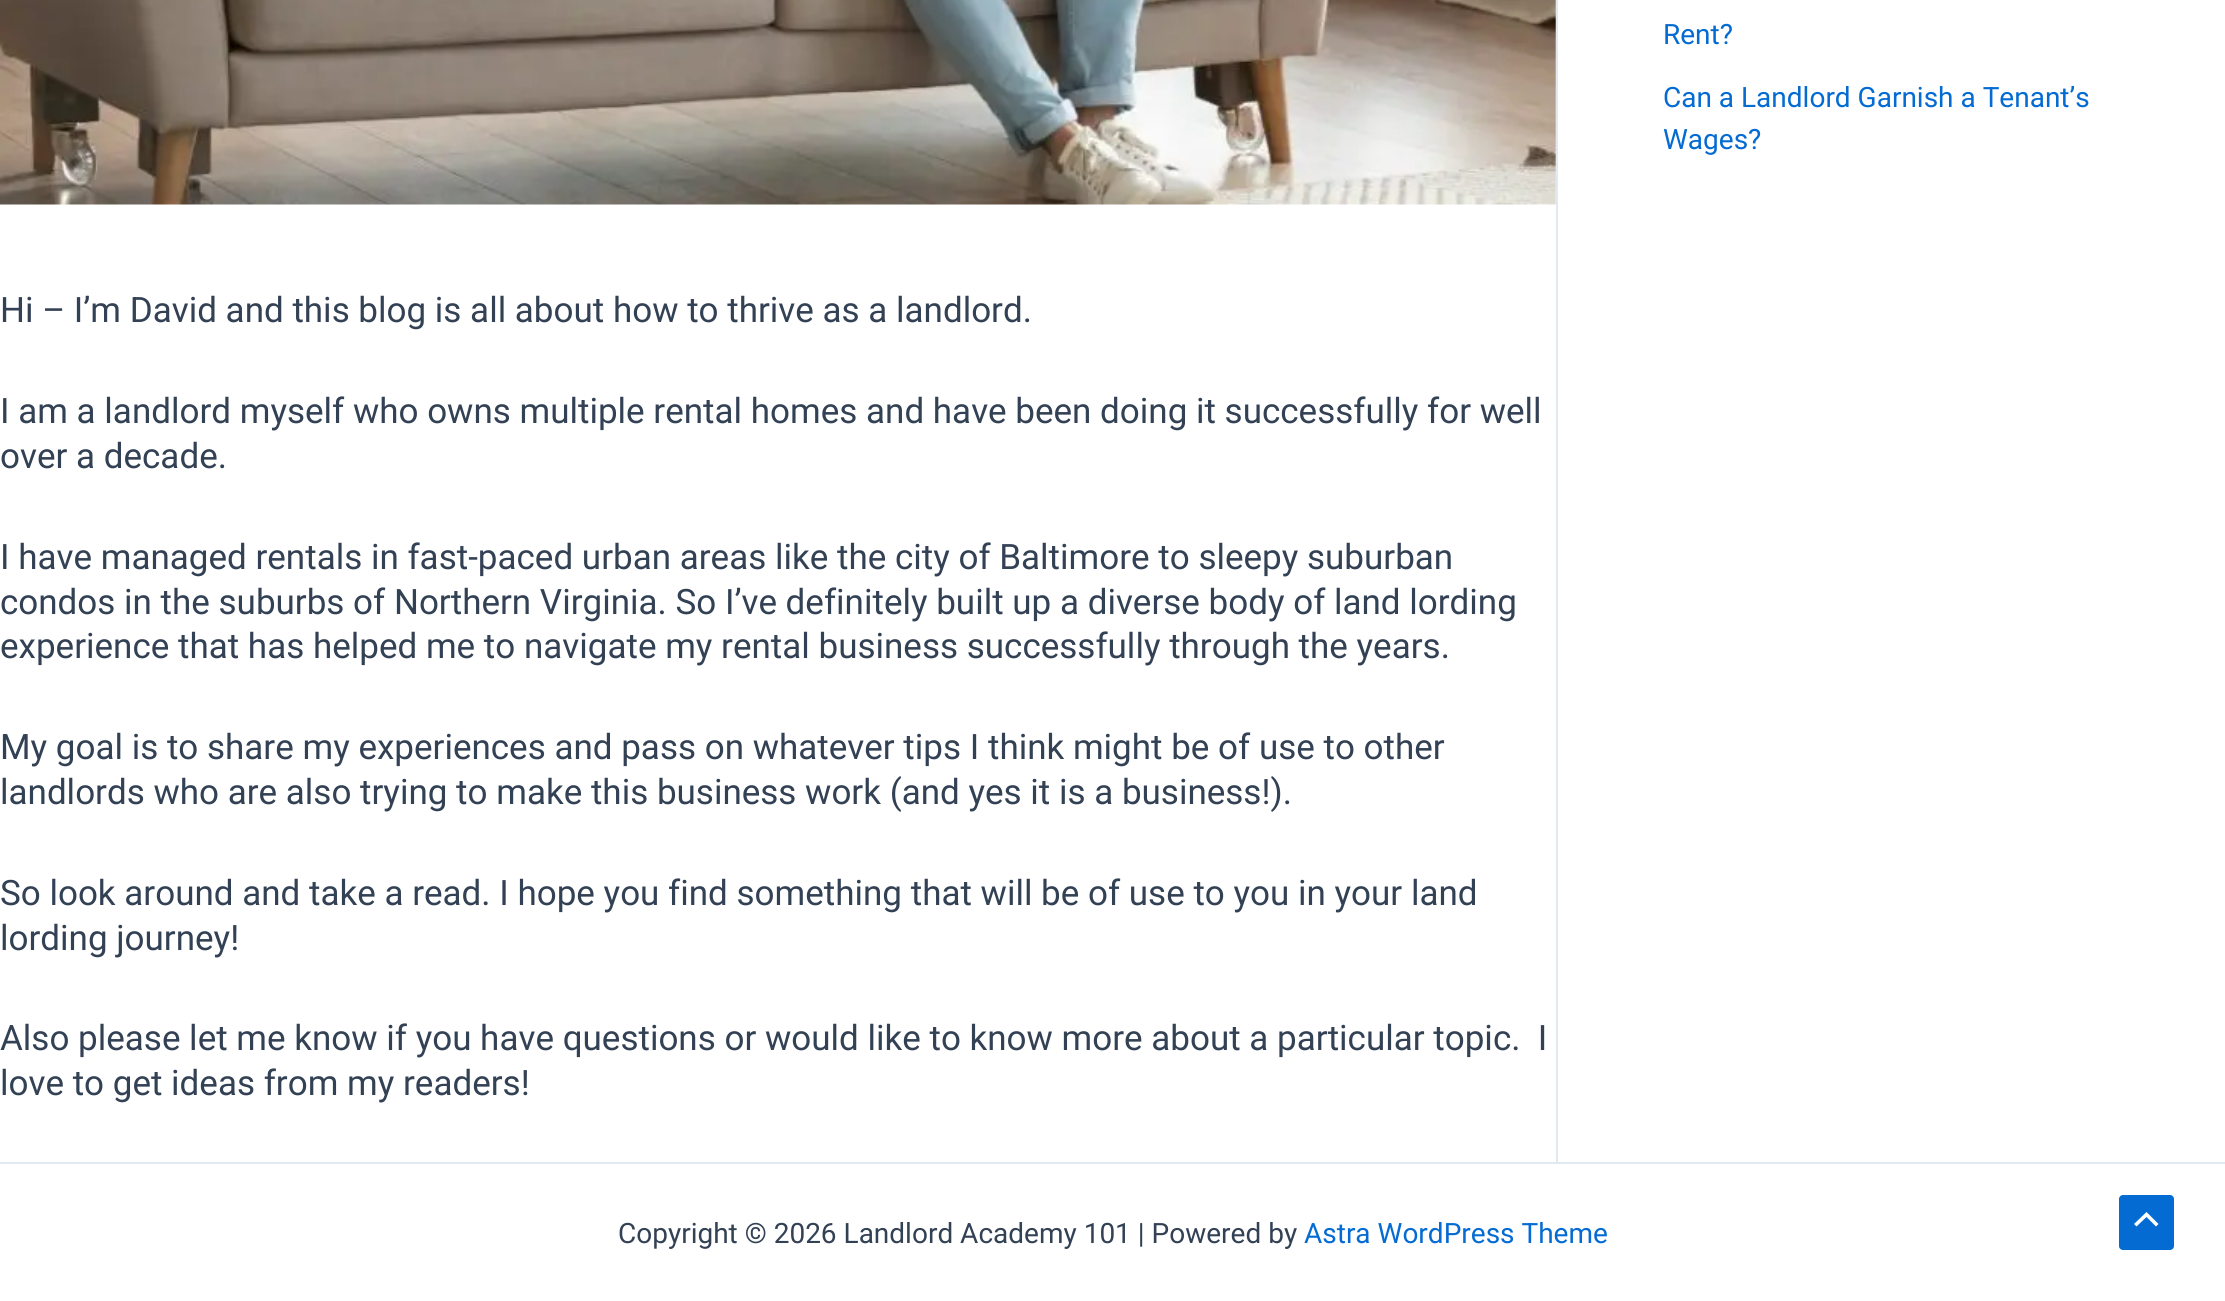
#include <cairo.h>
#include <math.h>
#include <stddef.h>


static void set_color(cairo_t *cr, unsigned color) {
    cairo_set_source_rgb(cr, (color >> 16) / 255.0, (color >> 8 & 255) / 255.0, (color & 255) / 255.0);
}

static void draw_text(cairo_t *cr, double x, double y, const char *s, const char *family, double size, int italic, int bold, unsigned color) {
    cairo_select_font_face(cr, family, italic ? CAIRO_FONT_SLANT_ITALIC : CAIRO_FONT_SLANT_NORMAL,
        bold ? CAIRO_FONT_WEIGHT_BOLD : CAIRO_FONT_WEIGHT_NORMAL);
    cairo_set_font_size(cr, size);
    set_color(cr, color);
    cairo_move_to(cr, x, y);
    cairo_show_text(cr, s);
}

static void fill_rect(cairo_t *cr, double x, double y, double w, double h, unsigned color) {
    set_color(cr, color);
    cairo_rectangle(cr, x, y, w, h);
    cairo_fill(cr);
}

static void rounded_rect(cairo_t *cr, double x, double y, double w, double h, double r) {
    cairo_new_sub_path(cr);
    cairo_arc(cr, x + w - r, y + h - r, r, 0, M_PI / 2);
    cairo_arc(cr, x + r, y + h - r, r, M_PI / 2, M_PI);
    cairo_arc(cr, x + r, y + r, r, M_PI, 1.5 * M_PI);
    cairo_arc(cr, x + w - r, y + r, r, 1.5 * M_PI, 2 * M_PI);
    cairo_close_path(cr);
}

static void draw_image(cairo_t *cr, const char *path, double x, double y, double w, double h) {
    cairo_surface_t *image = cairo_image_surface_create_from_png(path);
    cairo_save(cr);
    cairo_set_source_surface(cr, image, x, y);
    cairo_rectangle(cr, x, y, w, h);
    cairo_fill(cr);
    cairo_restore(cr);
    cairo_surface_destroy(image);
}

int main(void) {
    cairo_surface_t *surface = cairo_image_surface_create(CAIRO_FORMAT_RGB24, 2225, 1301);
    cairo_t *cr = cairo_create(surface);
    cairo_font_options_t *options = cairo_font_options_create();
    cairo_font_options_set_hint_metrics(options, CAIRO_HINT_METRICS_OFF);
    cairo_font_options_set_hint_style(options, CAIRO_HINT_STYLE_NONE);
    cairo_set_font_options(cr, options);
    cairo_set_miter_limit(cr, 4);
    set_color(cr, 0xFFFFFF);
    cairo_paint(cr);
    draw_text(cr, 1663, 44, "Rent?", "Roboto", 28, 0, 0, 0x046BD2);
    draw_text(cr, 1663, 107, "Can a Landlord Garnish a Tenant’s", "Roboto", 28, 0, 0, 0x046BD2);
    draw_text(cr, 1663, 149, "Wages?", "Roboto", 28, 0, 0, 0x046BD2);
    fill_rect(cr, 1556, 0, 2, 1162, 0xE2E8F0);
    draw_image(cr, "assets/img1.png", 0, 0, 1556, 205);
    draw_text(cr, 0, 322, "Hi – I’m David and this blog is all about how to thrive as a landlord.", "Roboto", 35, 0, 0, 0x334155);
    draw_text(cr, 0, 423, "I am a landlord myself who owns multiple rental homes and have been doing it successfully for well", "Roboto", 35, 0, 0, 0x334155);
    draw_text(cr, 0, 468, "over a decade.", "Roboto", 35, 0, 0, 0x334155);
    draw_text(cr, 0, 569, "I have managed rentals in fast-paced urban areas like the city of Baltimore to sleepy suburban", "Roboto", 35, 0, 0, 0x334155);
    draw_text(cr, 0, 614, "condos in the suburbs of Northern Virginia. So I’ve definitely built up a diverse body of land lording", "Roboto", 35, 0, 0, 0x334155);
    draw_text(cr, 0, 658, "experience that has helped me to navigate my rental business successfully through the years.", "Roboto", 35, 0, 0, 0x334155);
    draw_text(cr, 0, 759, "My goal is to share my experiences and pass on whatever tips I think might be of use to other", "Roboto", 35, 0, 0, 0x334155);
    draw_text(cr, 0, 804, "landlords who are also trying to make this business work (and yes it is a business!).", "Roboto", 35, 0, 0, 0x334155);
    draw_text(cr, 0, 905, "So look around and take a read. I hope you find something that will be of use to you in your land", "Roboto", 35, 0, 0, 0x334155);
    draw_text(cr, 0, 950, "lording journey!", "Roboto", 35, 0, 0, 0x334155);
    draw_text(cr, 0, 1050, "Also please let me know if you have questions or would like to know more about a particular topic.  I", "Roboto", 35, 0, 0, 0x334155);
    draw_text(cr, 0, 1095, "love to get ideas from my readers!", "Roboto", 35, 0, 0, 0x334155);
    fill_rect(cr, 0, 1162, 2225, 2, 0xE2E8F0);
    draw_text(cr, 618, 1243, "Copyright © 2026 Landlord Academy 101 | Powered by", "Roboto", 28, 0, 0, 0x334155);
    draw_text(cr, 1304, 1243, "Astra WordPress Theme", "Roboto", 28, 0, 0, 0x046BD2);
    rounded_rect(cr, 2119, 1195, 55, 55, 4);
    cairo_fill(cr);
    set_color(cr, 0xFFFFFF);
    cairo_new_path(cr);
    cairo_move_to(cr, 2158.5, 1224);
    cairo_line_to(cr, 2146.5, 1212);
    cairo_line_to(cr, 2134, 1224);
    cairo_line_to(cr, 2136.5, 1226.5);
    cairo_line_to(cr, 2146.5, 1217);
    cairo_line_to(cr, 2156, 1226.5);
    cairo_close_path(cr);
    cairo_fill(cr);
    cairo_surface_write_to_png(surface, "output.png");
    cairo_font_options_destroy(options);
    cairo_destroy(cr);
    cairo_surface_destroy(surface);
    return 0;
}
